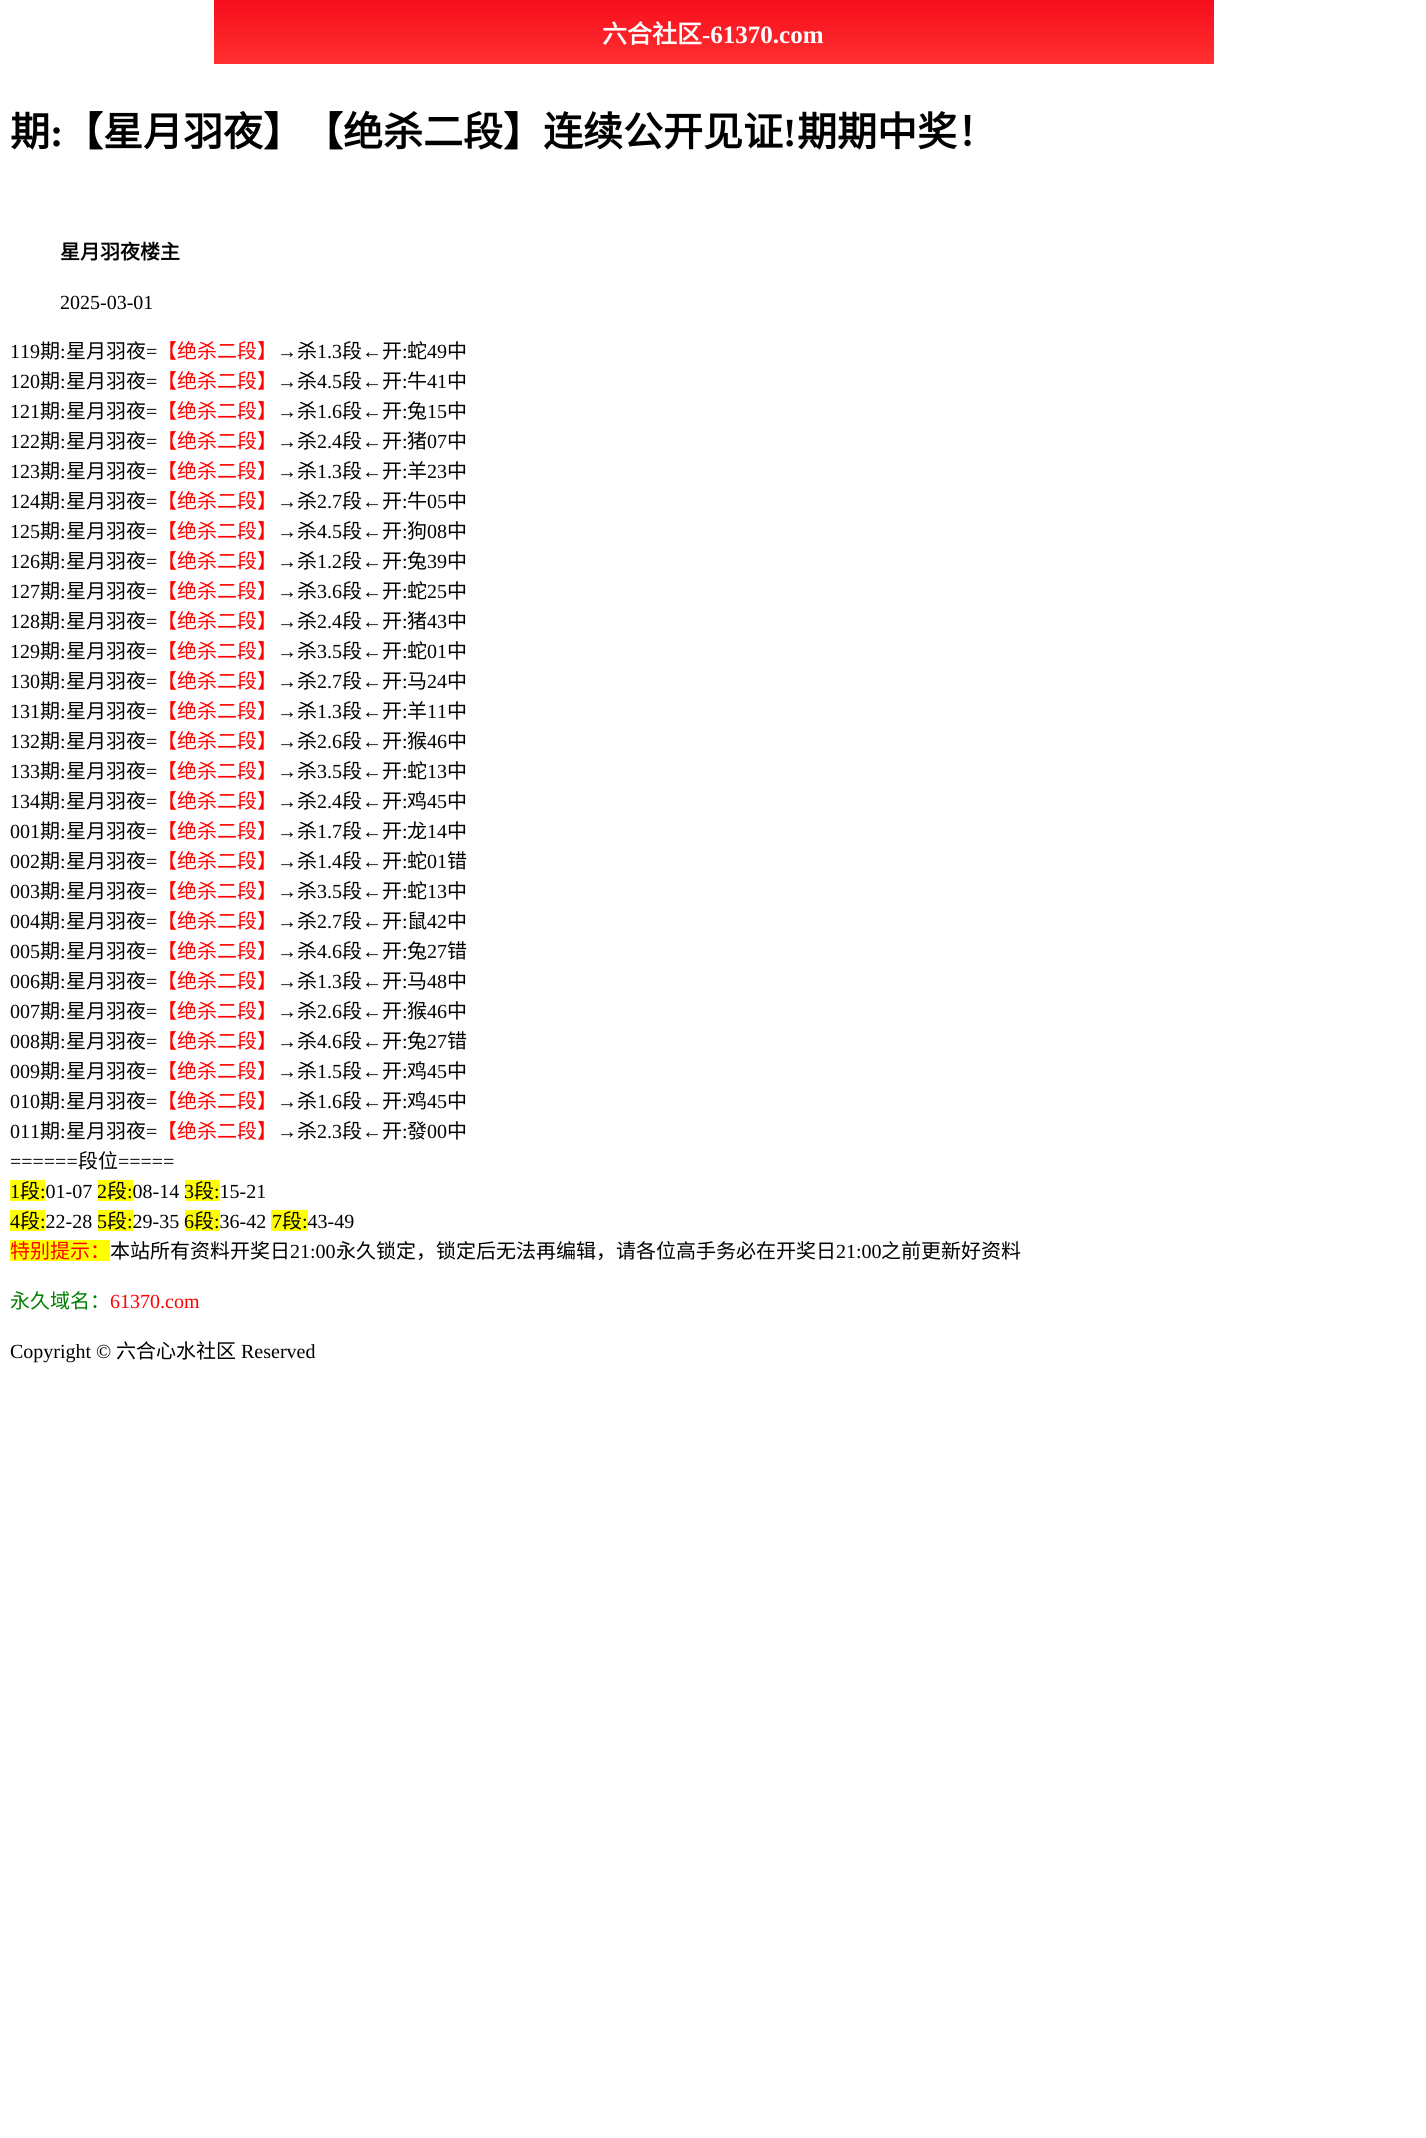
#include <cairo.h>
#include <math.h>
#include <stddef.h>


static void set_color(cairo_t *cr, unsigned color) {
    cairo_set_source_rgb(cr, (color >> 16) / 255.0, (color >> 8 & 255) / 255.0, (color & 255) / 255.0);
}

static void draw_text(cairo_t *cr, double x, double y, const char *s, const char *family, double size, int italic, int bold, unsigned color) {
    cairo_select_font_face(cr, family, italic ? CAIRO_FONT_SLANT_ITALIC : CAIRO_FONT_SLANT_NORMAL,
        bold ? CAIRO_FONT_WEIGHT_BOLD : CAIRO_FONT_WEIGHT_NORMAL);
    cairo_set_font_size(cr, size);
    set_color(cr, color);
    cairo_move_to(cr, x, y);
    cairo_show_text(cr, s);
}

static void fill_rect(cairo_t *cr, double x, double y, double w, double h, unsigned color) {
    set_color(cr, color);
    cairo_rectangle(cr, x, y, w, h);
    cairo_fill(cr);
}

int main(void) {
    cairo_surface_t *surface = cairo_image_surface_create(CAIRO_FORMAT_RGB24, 1426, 2138);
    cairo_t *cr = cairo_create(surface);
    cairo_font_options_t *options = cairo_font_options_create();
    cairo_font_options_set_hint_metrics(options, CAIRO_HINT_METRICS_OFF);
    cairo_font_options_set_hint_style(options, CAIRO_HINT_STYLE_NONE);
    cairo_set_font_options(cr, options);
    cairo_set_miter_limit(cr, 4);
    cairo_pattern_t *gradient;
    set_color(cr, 0xFFFFFF);
    cairo_paint(cr);
    gradient = cairo_pattern_create_linear(714, 64, 714, 0);
    cairo_pattern_add_color_stop_rgba(gradient, 0, 1, 0.188, 0.188, 1);
    cairo_pattern_add_color_stop_rgba(gradient, 1, 0.965, 0.051, 0.11, 1);
    cairo_set_source(cr, gradient);
    cairo_pattern_destroy(gradient);
    cairo_rectangle(cr, 214, 0, 1000, 64);
    cairo_fill(cr);
    draw_text(cr, 602, 43, "六合社区", "Noto Sans CJK SC", 25, 0, 1, 0xFFFFFF);
    draw_text(cr, 702, 43, "-61370.com", "Liberation Serif", 25, 0, 1, 0xFFFFFF);
    draw_text(cr, 10, 146, "期", "Noto Sans CJK SC", 40, 0, 1, 0x000000);
    draw_text(cr, 50, 146, ":", "Liberation Serif", 40, 0, 1, 0x000000);
    draw_text(cr, 63, 146, "【星月羽夜】【绝杀二段】连续公开见证", "Noto Sans CJK SC", 40, 0, 1, 0x000000);
    draw_text(cr, 783, 146, "!", "Liberation Serif", 40, 0, 1, 0x000000);
    draw_text(cr, 797, 146, "期期中奖！", "Noto Sans CJK SC", 40, 0, 1, 0x000000);
    draw_text(cr, 60, 259, "星月羽夜楼主", "Noto Sans CJK SC", 20, 0, 1, 0x000000);
    draw_text(cr, 60, 309, "2025-03-01", "Liberation Serif", 20, 0, 0, 0x000000);
    draw_text(cr, 10, 358, "119", "Liberation Serif", 20, 0, 0, 0x000000);
    draw_text(cr, 40, 358, "期", "Noto Sans CJK SC", 20, 0, 0, 0x000000);
    draw_text(cr, 60, 358, ":", "Liberation Serif", 20, 0, 0, 0x000000);
    draw_text(cr, 66, 358, "星月羽夜", "Noto Sans CJK SC", 20, 0, 0, 0x000000);
    draw_text(cr, 146, 358, "=", "Liberation Serif", 20, 0, 0, 0x000000);
    draw_text(cr, 157, 358, "【绝杀二段】", "Noto Sans CJK SC", 20, 0, 0, 0xFF0000);
    draw_text(cr, 277, 358, "→", "Liberation Serif", 20, 0, 0, 0x000000);
    draw_text(cr, 297, 358, "杀", "Noto Sans CJK SC", 20, 0, 0, 0x000000);
    draw_text(cr, 317, 358, "1.3", "Liberation Serif", 20, 0, 0, 0x000000);
    draw_text(cr, 342, 358, "段", "Noto Sans CJK SC", 20, 0, 0, 0x000000);
    draw_text(cr, 362, 358, "←", "Liberation Serif", 20, 0, 0, 0x000000);
    draw_text(cr, 382, 358, "开", "Noto Sans CJK SC", 20, 0, 0, 0x000000);
    draw_text(cr, 402, 358, ":", "Liberation Serif", 20, 0, 0, 0x000000);
    draw_text(cr, 407, 358, "蛇", "Noto Sans CJK SC", 20, 0, 0, 0x000000);
    draw_text(cr, 427, 358, "49", "Liberation Serif", 20, 0, 0, 0x000000);
    draw_text(cr, 447, 358, "中", "Noto Sans CJK SC", 20, 0, 0, 0x000000);
    draw_text(cr, 10, 388, "120", "Liberation Serif", 20, 0, 0, 0x000000);
    draw_text(cr, 40, 388, "期", "Noto Sans CJK SC", 20, 0, 0, 0x000000);
    draw_text(cr, 60, 388, ":", "Liberation Serif", 20, 0, 0, 0x000000);
    draw_text(cr, 66, 388, "星月羽夜", "Noto Sans CJK SC", 20, 0, 0, 0x000000);
    draw_text(cr, 146, 388, "=", "Liberation Serif", 20, 0, 0, 0x000000);
    draw_text(cr, 157, 388, "【绝杀二段】", "Noto Sans CJK SC", 20, 0, 0, 0xFF0000);
    draw_text(cr, 277, 388, "→", "Liberation Serif", 20, 0, 0, 0x000000);
    draw_text(cr, 297, 388, "杀", "Noto Sans CJK SC", 20, 0, 0, 0x000000);
    draw_text(cr, 317, 388, "4.5", "Liberation Serif", 20, 0, 0, 0x000000);
    draw_text(cr, 342, 388, "段", "Noto Sans CJK SC", 20, 0, 0, 0x000000);
    draw_text(cr, 362, 388, "←", "Liberation Serif", 20, 0, 0, 0x000000);
    draw_text(cr, 382, 388, "开", "Noto Sans CJK SC", 20, 0, 0, 0x000000);
    draw_text(cr, 402, 388, ":", "Liberation Serif", 20, 0, 0, 0x000000);
    draw_text(cr, 407, 388, "牛", "Noto Sans CJK SC", 20, 0, 0, 0x000000);
    draw_text(cr, 427, 388, "41", "Liberation Serif", 20, 0, 0, 0x000000);
    draw_text(cr, 447, 388, "中", "Noto Sans CJK SC", 20, 0, 0, 0x000000);
    draw_text(cr, 10, 418, "121", "Liberation Serif", 20, 0, 0, 0x000000);
    draw_text(cr, 40, 418, "期", "Noto Sans CJK SC", 20, 0, 0, 0x000000);
    draw_text(cr, 60, 418, ":", "Liberation Serif", 20, 0, 0, 0x000000);
    draw_text(cr, 66, 418, "星月羽夜", "Noto Sans CJK SC", 20, 0, 0, 0x000000);
    draw_text(cr, 146, 418, "=", "Liberation Serif", 20, 0, 0, 0x000000);
    draw_text(cr, 157, 418, "【绝杀二段】", "Noto Sans CJK SC", 20, 0, 0, 0xFF0000);
    draw_text(cr, 277, 418, "→", "Liberation Serif", 20, 0, 0, 0x000000);
    draw_text(cr, 297, 418, "杀", "Noto Sans CJK SC", 20, 0, 0, 0x000000);
    draw_text(cr, 317, 418, "1.6", "Liberation Serif", 20, 0, 0, 0x000000);
    draw_text(cr, 342, 418, "段", "Noto Sans CJK SC", 20, 0, 0, 0x000000);
    draw_text(cr, 362, 418, "←", "Liberation Serif", 20, 0, 0, 0x000000);
    draw_text(cr, 382, 418, "开", "Noto Sans CJK SC", 20, 0, 0, 0x000000);
    draw_text(cr, 402, 418, ":", "Liberation Serif", 20, 0, 0, 0x000000);
    draw_text(cr, 407, 418, "兔", "Noto Sans CJK SC", 20, 0, 0, 0x000000);
    draw_text(cr, 427, 418, "15", "Liberation Serif", 20, 0, 0, 0x000000);
    draw_text(cr, 447, 418, "中", "Noto Sans CJK SC", 20, 0, 0, 0x000000);
    draw_text(cr, 10, 448, "122", "Liberation Serif", 20, 0, 0, 0x000000);
    draw_text(cr, 40, 448, "期", "Noto Sans CJK SC", 20, 0, 0, 0x000000);
    draw_text(cr, 60, 448, ":", "Liberation Serif", 20, 0, 0, 0x000000);
    draw_text(cr, 66, 448, "星月羽夜", "Noto Sans CJK SC", 20, 0, 0, 0x000000);
    draw_text(cr, 146, 448, "=", "Liberation Serif", 20, 0, 0, 0x000000);
    draw_text(cr, 157, 448, "【绝杀二段】", "Noto Sans CJK SC", 20, 0, 0, 0xFF0000);
    draw_text(cr, 277, 448, "→", "Liberation Serif", 20, 0, 0, 0x000000);
    draw_text(cr, 297, 448, "杀", "Noto Sans CJK SC", 20, 0, 0, 0x000000);
    draw_text(cr, 317, 448, "2.4", "Liberation Serif", 20, 0, 0, 0x000000);
    draw_text(cr, 342, 448, "段", "Noto Sans CJK SC", 20, 0, 0, 0x000000);
    draw_text(cr, 362, 448, "←", "Liberation Serif", 20, 0, 0, 0x000000);
    draw_text(cr, 382, 448, "开", "Noto Sans CJK SC", 20, 0, 0, 0x000000);
    draw_text(cr, 402, 448, ":", "Liberation Serif", 20, 0, 0, 0x000000);
    draw_text(cr, 407, 448, "猪", "Noto Sans CJK SC", 20, 0, 0, 0x000000);
    draw_text(cr, 427, 448, "07", "Liberation Serif", 20, 0, 0, 0x000000);
    draw_text(cr, 447, 448, "中", "Noto Sans CJK SC", 20, 0, 0, 0x000000);
    draw_text(cr, 10, 478, "123", "Liberation Serif", 20, 0, 0, 0x000000);
    draw_text(cr, 40, 478, "期", "Noto Sans CJK SC", 20, 0, 0, 0x000000);
    draw_text(cr, 60, 478, ":", "Liberation Serif", 20, 0, 0, 0x000000);
    draw_text(cr, 66, 478, "星月羽夜", "Noto Sans CJK SC", 20, 0, 0, 0x000000);
    draw_text(cr, 146, 478, "=", "Liberation Serif", 20, 0, 0, 0x000000);
    draw_text(cr, 157, 478, "【绝杀二段】", "Noto Sans CJK SC", 20, 0, 0, 0xFF0000);
    draw_text(cr, 277, 478, "→", "Liberation Serif", 20, 0, 0, 0x000000);
    draw_text(cr, 297, 478, "杀", "Noto Sans CJK SC", 20, 0, 0, 0x000000);
    draw_text(cr, 317, 478, "1.3", "Liberation Serif", 20, 0, 0, 0x000000);
    draw_text(cr, 342, 478, "段", "Noto Sans CJK SC", 20, 0, 0, 0x000000);
    draw_text(cr, 362, 478, "←", "Liberation Serif", 20, 0, 0, 0x000000);
    draw_text(cr, 382, 478, "开", "Noto Sans CJK SC", 20, 0, 0, 0x000000);
    draw_text(cr, 402, 478, ":", "Liberation Serif", 20, 0, 0, 0x000000);
    draw_text(cr, 407, 478, "羊", "Noto Sans CJK SC", 20, 0, 0, 0x000000);
    draw_text(cr, 427, 478, "23", "Liberation Serif", 20, 0, 0, 0x000000);
    draw_text(cr, 447, 478, "中", "Noto Sans CJK SC", 20, 0, 0, 0x000000);
    draw_text(cr, 10, 508, "124", "Liberation Serif", 20, 0, 0, 0x000000);
    draw_text(cr, 40, 508, "期", "Noto Sans CJK SC", 20, 0, 0, 0x000000);
    draw_text(cr, 60, 508, ":", "Liberation Serif", 20, 0, 0, 0x000000);
    draw_text(cr, 66, 508, "星月羽夜", "Noto Sans CJK SC", 20, 0, 0, 0x000000);
    draw_text(cr, 146, 508, "=", "Liberation Serif", 20, 0, 0, 0x000000);
    draw_text(cr, 157, 508, "【绝杀二段】", "Noto Sans CJK SC", 20, 0, 0, 0xFF0000);
    draw_text(cr, 277, 508, "→", "Liberation Serif", 20, 0, 0, 0x000000);
    draw_text(cr, 297, 508, "杀", "Noto Sans CJK SC", 20, 0, 0, 0x000000);
    draw_text(cr, 317, 508, "2.7", "Liberation Serif", 20, 0, 0, 0x000000);
    draw_text(cr, 342, 508, "段", "Noto Sans CJK SC", 20, 0, 0, 0x000000);
    draw_text(cr, 362, 508, "←", "Liberation Serif", 20, 0, 0, 0x000000);
    draw_text(cr, 382, 508, "开", "Noto Sans CJK SC", 20, 0, 0, 0x000000);
    draw_text(cr, 402, 508, ":", "Liberation Serif", 20, 0, 0, 0x000000);
    draw_text(cr, 407, 508, "牛", "Noto Sans CJK SC", 20, 0, 0, 0x000000);
    draw_text(cr, 427, 508, "05", "Liberation Serif", 20, 0, 0, 0x000000);
    draw_text(cr, 447, 508, "中", "Noto Sans CJK SC", 20, 0, 0, 0x000000);
    draw_text(cr, 10, 538, "125", "Liberation Serif", 20, 0, 0, 0x000000);
    draw_text(cr, 40, 538, "期", "Noto Sans CJK SC", 20, 0, 0, 0x000000);
    draw_text(cr, 60, 538, ":", "Liberation Serif", 20, 0, 0, 0x000000);
    draw_text(cr, 66, 538, "星月羽夜", "Noto Sans CJK SC", 20, 0, 0, 0x000000);
    draw_text(cr, 146, 538, "=", "Liberation Serif", 20, 0, 0, 0x000000);
    draw_text(cr, 157, 538, "【绝杀二段】", "Noto Sans CJK SC", 20, 0, 0, 0xFF0000);
    draw_text(cr, 277, 538, "→", "Liberation Serif", 20, 0, 0, 0x000000);
    draw_text(cr, 297, 538, "杀", "Noto Sans CJK SC", 20, 0, 0, 0x000000);
    draw_text(cr, 317, 538, "4.5", "Liberation Serif", 20, 0, 0, 0x000000);
    draw_text(cr, 342, 538, "段", "Noto Sans CJK SC", 20, 0, 0, 0x000000);
    draw_text(cr, 362, 538, "←", "Liberation Serif", 20, 0, 0, 0x000000);
    draw_text(cr, 382, 538, "开", "Noto Sans CJK SC", 20, 0, 0, 0x000000);
    draw_text(cr, 402, 538, ":", "Liberation Serif", 20, 0, 0, 0x000000);
    draw_text(cr, 407, 538, "狗", "Noto Sans CJK SC", 20, 0, 0, 0x000000);
    draw_text(cr, 427, 538, "08", "Liberation Serif", 20, 0, 0, 0x000000);
    draw_text(cr, 447, 538, "中", "Noto Sans CJK SC", 20, 0, 0, 0x000000);
    draw_text(cr, 10, 568, "126", "Liberation Serif", 20, 0, 0, 0x000000);
    draw_text(cr, 40, 568, "期", "Noto Sans CJK SC", 20, 0, 0, 0x000000);
    draw_text(cr, 60, 568, ":", "Liberation Serif", 20, 0, 0, 0x000000);
    draw_text(cr, 66, 568, "星月羽夜", "Noto Sans CJK SC", 20, 0, 0, 0x000000);
    draw_text(cr, 146, 568, "=", "Liberation Serif", 20, 0, 0, 0x000000);
    draw_text(cr, 157, 568, "【绝杀二段】", "Noto Sans CJK SC", 20, 0, 0, 0xFF0000);
    draw_text(cr, 277, 568, "→", "Liberation Serif", 20, 0, 0, 0x000000);
    draw_text(cr, 297, 568, "杀", "Noto Sans CJK SC", 20, 0, 0, 0x000000);
    draw_text(cr, 317, 568, "1.2", "Liberation Serif", 20, 0, 0, 0x000000);
    draw_text(cr, 342, 568, "段", "Noto Sans CJK SC", 20, 0, 0, 0x000000);
    draw_text(cr, 362, 568, "←", "Liberation Serif", 20, 0, 0, 0x000000);
    draw_text(cr, 382, 568, "开", "Noto Sans CJK SC", 20, 0, 0, 0x000000);
    draw_text(cr, 402, 568, ":", "Liberation Serif", 20, 0, 0, 0x000000);
    draw_text(cr, 407, 568, "兔", "Noto Sans CJK SC", 20, 0, 0, 0x000000);
    draw_text(cr, 427, 568, "39", "Liberation Serif", 20, 0, 0, 0x000000);
    draw_text(cr, 447, 568, "中", "Noto Sans CJK SC", 20, 0, 0, 0x000000);
    draw_text(cr, 10, 598, "127", "Liberation Serif", 20, 0, 0, 0x000000);
    draw_text(cr, 40, 598, "期", "Noto Sans CJK SC", 20, 0, 0, 0x000000);
    draw_text(cr, 60, 598, ":", "Liberation Serif", 20, 0, 0, 0x000000);
    draw_text(cr, 66, 598, "星月羽夜", "Noto Sans CJK SC", 20, 0, 0, 0x000000);
    draw_text(cr, 146, 598, "=", "Liberation Serif", 20, 0, 0, 0x000000);
    draw_text(cr, 157, 598, "【绝杀二段】", "Noto Sans CJK SC", 20, 0, 0, 0xFF0000);
    draw_text(cr, 277, 598, "→", "Liberation Serif", 20, 0, 0, 0x000000);
    draw_text(cr, 297, 598, "杀", "Noto Sans CJK SC", 20, 0, 0, 0x000000);
    draw_text(cr, 317, 598, "3.6", "Liberation Serif", 20, 0, 0, 0x000000);
    draw_text(cr, 342, 598, "段", "Noto Sans CJK SC", 20, 0, 0, 0x000000);
    draw_text(cr, 362, 598, "←", "Liberation Serif", 20, 0, 0, 0x000000);
    draw_text(cr, 382, 598, "开", "Noto Sans CJK SC", 20, 0, 0, 0x000000);
    draw_text(cr, 402, 598, ":", "Liberation Serif", 20, 0, 0, 0x000000);
    draw_text(cr, 407, 598, "蛇", "Noto Sans CJK SC", 20, 0, 0, 0x000000);
    draw_text(cr, 427, 598, "25", "Liberation Serif", 20, 0, 0, 0x000000);
    draw_text(cr, 447, 598, "中", "Noto Sans CJK SC", 20, 0, 0, 0x000000);
    draw_text(cr, 10, 628, "128", "Liberation Serif", 20, 0, 0, 0x000000);
    draw_text(cr, 40, 628, "期", "Noto Sans CJK SC", 20, 0, 0, 0x000000);
    draw_text(cr, 60, 628, ":", "Liberation Serif", 20, 0, 0, 0x000000);
    draw_text(cr, 66, 628, "星月羽夜", "Noto Sans CJK SC", 20, 0, 0, 0x000000);
    draw_text(cr, 146, 628, "=", "Liberation Serif", 20, 0, 0, 0x000000);
    draw_text(cr, 157, 628, "【绝杀二段】", "Noto Sans CJK SC", 20, 0, 0, 0xFF0000);
    draw_text(cr, 277, 628, "→", "Liberation Serif", 20, 0, 0, 0x000000);
    draw_text(cr, 297, 628, "杀", "Noto Sans CJK SC", 20, 0, 0, 0x000000);
    draw_text(cr, 317, 628, "2.4", "Liberation Serif", 20, 0, 0, 0x000000);
    draw_text(cr, 342, 628, "段", "Noto Sans CJK SC", 20, 0, 0, 0x000000);
    draw_text(cr, 362, 628, "←", "Liberation Serif", 20, 0, 0, 0x000000);
    draw_text(cr, 382, 628, "开", "Noto Sans CJK SC", 20, 0, 0, 0x000000);
    draw_text(cr, 402, 628, ":", "Liberation Serif", 20, 0, 0, 0x000000);
    draw_text(cr, 407, 628, "猪", "Noto Sans CJK SC", 20, 0, 0, 0x000000);
    draw_text(cr, 427, 628, "43", "Liberation Serif", 20, 0, 0, 0x000000);
    draw_text(cr, 447, 628, "中", "Noto Sans CJK SC", 20, 0, 0, 0x000000);
    draw_text(cr, 10, 658, "129", "Liberation Serif", 20, 0, 0, 0x000000);
    draw_text(cr, 40, 658, "期", "Noto Sans CJK SC", 20, 0, 0, 0x000000);
    draw_text(cr, 60, 658, ":", "Liberation Serif", 20, 0, 0, 0x000000);
    draw_text(cr, 66, 658, "星月羽夜", "Noto Sans CJK SC", 20, 0, 0, 0x000000);
    draw_text(cr, 146, 658, "=", "Liberation Serif", 20, 0, 0, 0x000000);
    draw_text(cr, 157, 658, "【绝杀二段】", "Noto Sans CJK SC", 20, 0, 0, 0xFF0000);
    draw_text(cr, 277, 658, "→", "Liberation Serif", 20, 0, 0, 0x000000);
    draw_text(cr, 297, 658, "杀", "Noto Sans CJK SC", 20, 0, 0, 0x000000);
    draw_text(cr, 317, 658, "3.5", "Liberation Serif", 20, 0, 0, 0x000000);
    draw_text(cr, 342, 658, "段", "Noto Sans CJK SC", 20, 0, 0, 0x000000);
    draw_text(cr, 362, 658, "←", "Liberation Serif", 20, 0, 0, 0x000000);
    draw_text(cr, 382, 658, "开", "Noto Sans CJK SC", 20, 0, 0, 0x000000);
    draw_text(cr, 402, 658, ":", "Liberation Serif", 20, 0, 0, 0x000000);
    draw_text(cr, 407, 658, "蛇", "Noto Sans CJK SC", 20, 0, 0, 0x000000);
    draw_text(cr, 427, 658, "01", "Liberation Serif", 20, 0, 0, 0x000000);
    draw_text(cr, 447, 658, "中", "Noto Sans CJK SC", 20, 0, 0, 0x000000);
    draw_text(cr, 10, 688, "130", "Liberation Serif", 20, 0, 0, 0x000000);
    draw_text(cr, 40, 688, "期", "Noto Sans CJK SC", 20, 0, 0, 0x000000);
    draw_text(cr, 60, 688, ":", "Liberation Serif", 20, 0, 0, 0x000000);
    draw_text(cr, 66, 688, "星月羽夜", "Noto Sans CJK SC", 20, 0, 0, 0x000000);
    draw_text(cr, 146, 688, "=", "Liberation Serif", 20, 0, 0, 0x000000);
    draw_text(cr, 157, 688, "【绝杀二段】", "Noto Sans CJK SC", 20, 0, 0, 0xFF0000);
    draw_text(cr, 277, 688, "→", "Liberation Serif", 20, 0, 0, 0x000000);
    draw_text(cr, 297, 688, "杀", "Noto Sans CJK SC", 20, 0, 0, 0x000000);
    draw_text(cr, 317, 688, "2.7", "Liberation Serif", 20, 0, 0, 0x000000);
    draw_text(cr, 342, 688, "段", "Noto Sans CJK SC", 20, 0, 0, 0x000000);
    draw_text(cr, 362, 688, "←", "Liberation Serif", 20, 0, 0, 0x000000);
    draw_text(cr, 382, 688, "开", "Noto Sans CJK SC", 20, 0, 0, 0x000000);
    draw_text(cr, 402, 688, ":", "Liberation Serif", 20, 0, 0, 0x000000);
    draw_text(cr, 407, 688, "马", "Noto Sans CJK SC", 20, 0, 0, 0x000000);
    draw_text(cr, 427, 688, "24", "Liberation Serif", 20, 0, 0, 0x000000);
    draw_text(cr, 447, 688, "中", "Noto Sans CJK SC", 20, 0, 0, 0x000000);
    draw_text(cr, 10, 718, "131", "Liberation Serif", 20, 0, 0, 0x000000);
    draw_text(cr, 40, 718, "期", "Noto Sans CJK SC", 20, 0, 0, 0x000000);
    draw_text(cr, 60, 718, ":", "Liberation Serif", 20, 0, 0, 0x000000);
    draw_text(cr, 66, 718, "星月羽夜", "Noto Sans CJK SC", 20, 0, 0, 0x000000);
    draw_text(cr, 146, 718, "=", "Liberation Serif", 20, 0, 0, 0x000000);
    draw_text(cr, 157, 718, "【绝杀二段】", "Noto Sans CJK SC", 20, 0, 0, 0xFF0000);
    draw_text(cr, 277, 718, "→", "Liberation Serif", 20, 0, 0, 0x000000);
    draw_text(cr, 297, 718, "杀", "Noto Sans CJK SC", 20, 0, 0, 0x000000);
    draw_text(cr, 317, 718, "1.3", "Liberation Serif", 20, 0, 0, 0x000000);
    draw_text(cr, 342, 718, "段", "Noto Sans CJK SC", 20, 0, 0, 0x000000);
    draw_text(cr, 362, 718, "←", "Liberation Serif", 20, 0, 0, 0x000000);
    draw_text(cr, 382, 718, "开", "Noto Sans CJK SC", 20, 0, 0, 0x000000);
    draw_text(cr, 402, 718, ":", "Liberation Serif", 20, 0, 0, 0x000000);
    draw_text(cr, 407, 718, "羊", "Noto Sans CJK SC", 20, 0, 0, 0x000000);
    draw_text(cr, 427, 718, "11", "Liberation Serif", 20, 0, 0, 0x000000);
    draw_text(cr, 447, 718, "中", "Noto Sans CJK SC", 20, 0, 0, 0x000000);
    draw_text(cr, 10, 748, "132", "Liberation Serif", 20, 0, 0, 0x000000);
    draw_text(cr, 40, 748, "期", "Noto Sans CJK SC", 20, 0, 0, 0x000000);
    draw_text(cr, 60, 748, ":", "Liberation Serif", 20, 0, 0, 0x000000);
    draw_text(cr, 66, 748, "星月羽夜", "Noto Sans CJK SC", 20, 0, 0, 0x000000);
    draw_text(cr, 146, 748, "=", "Liberation Serif", 20, 0, 0, 0x000000);
    draw_text(cr, 157, 748, "【绝杀二段】", "Noto Sans CJK SC", 20, 0, 0, 0xFF0000);
    draw_text(cr, 277, 748, "→", "Liberation Serif", 20, 0, 0, 0x000000);
    draw_text(cr, 297, 748, "杀", "Noto Sans CJK SC", 20, 0, 0, 0x000000);
    draw_text(cr, 317, 748, "2.6", "Liberation Serif", 20, 0, 0, 0x000000);
    draw_text(cr, 342, 748, "段", "Noto Sans CJK SC", 20, 0, 0, 0x000000);
    draw_text(cr, 362, 748, "←", "Liberation Serif", 20, 0, 0, 0x000000);
    draw_text(cr, 382, 748, "开", "Noto Sans CJK SC", 20, 0, 0, 0x000000);
    draw_text(cr, 402, 748, ":", "Liberation Serif", 20, 0, 0, 0x000000);
    draw_text(cr, 407, 748, "猴", "Noto Sans CJK SC", 20, 0, 0, 0x000000);
    draw_text(cr, 427, 748, "46", "Liberation Serif", 20, 0, 0, 0x000000);
    draw_text(cr, 447, 748, "中", "Noto Sans CJK SC", 20, 0, 0, 0x000000);
    draw_text(cr, 10, 778, "133", "Liberation Serif", 20, 0, 0, 0x000000);
    draw_text(cr, 40, 778, "期", "Noto Sans CJK SC", 20, 0, 0, 0x000000);
    draw_text(cr, 60, 778, ":", "Liberation Serif", 20, 0, 0, 0x000000);
    draw_text(cr, 66, 778, "星月羽夜", "Noto Sans CJK SC", 20, 0, 0, 0x000000);
    draw_text(cr, 146, 778, "=", "Liberation Serif", 20, 0, 0, 0x000000);
    draw_text(cr, 157, 778, "【绝杀二段】", "Noto Sans CJK SC", 20, 0, 0, 0xFF0000);
    draw_text(cr, 277, 778, "→", "Liberation Serif", 20, 0, 0, 0x000000);
    draw_text(cr, 297, 778, "杀", "Noto Sans CJK SC", 20, 0, 0, 0x000000);
    draw_text(cr, 317, 778, "3.5", "Liberation Serif", 20, 0, 0, 0x000000);
    draw_text(cr, 342, 778, "段", "Noto Sans CJK SC", 20, 0, 0, 0x000000);
    draw_text(cr, 362, 778, "←", "Liberation Serif", 20, 0, 0, 0x000000);
    draw_text(cr, 382, 778, "开", "Noto Sans CJK SC", 20, 0, 0, 0x000000);
    draw_text(cr, 402, 778, ":", "Liberation Serif", 20, 0, 0, 0x000000);
    draw_text(cr, 407, 778, "蛇", "Noto Sans CJK SC", 20, 0, 0, 0x000000);
    draw_text(cr, 427, 778, "13", "Liberation Serif", 20, 0, 0, 0x000000);
    draw_text(cr, 447, 778, "中", "Noto Sans CJK SC", 20, 0, 0, 0x000000);
    draw_text(cr, 10, 808, "134", "Liberation Serif", 20, 0, 0, 0x000000);
    draw_text(cr, 40, 808, "期", "Noto Sans CJK SC", 20, 0, 0, 0x000000);
    draw_text(cr, 60, 808, ":", "Liberation Serif", 20, 0, 0, 0x000000);
    draw_text(cr, 66, 808, "星月羽夜", "Noto Sans CJK SC", 20, 0, 0, 0x000000);
    draw_text(cr, 146, 808, "=", "Liberation Serif", 20, 0, 0, 0x000000);
    draw_text(cr, 157, 808, "【绝杀二段】", "Noto Sans CJK SC", 20, 0, 0, 0xFF0000);
    draw_text(cr, 277, 808, "→", "Liberation Serif", 20, 0, 0, 0x000000);
    draw_text(cr, 297, 808, "杀", "Noto Sans CJK SC", 20, 0, 0, 0x000000);
    draw_text(cr, 317, 808, "2.4", "Liberation Serif", 20, 0, 0, 0x000000);
    draw_text(cr, 342, 808, "段", "Noto Sans CJK SC", 20, 0, 0, 0x000000);
    draw_text(cr, 362, 808, "←", "Liberation Serif", 20, 0, 0, 0x000000);
    draw_text(cr, 382, 808, "开", "Noto Sans CJK SC", 20, 0, 0, 0x000000);
    draw_text(cr, 402, 808, ":", "Liberation Serif", 20, 0, 0, 0x000000);
    draw_text(cr, 407, 808, "鸡", "Noto Sans CJK SC", 20, 0, 0, 0x000000);
    draw_text(cr, 427, 808, "45", "Liberation Serif", 20, 0, 0, 0x000000);
    draw_text(cr, 447, 808, "中", "Noto Sans CJK SC", 20, 0, 0, 0x000000);
    draw_text(cr, 10, 838, "001", "Liberation Serif", 20, 0, 0, 0x000000);
    draw_text(cr, 40, 838, "期", "Noto Sans CJK SC", 20, 0, 0, 0x000000);
    draw_text(cr, 60, 838, ":", "Liberation Serif", 20, 0, 0, 0x000000);
    draw_text(cr, 66, 838, "星月羽夜", "Noto Sans CJK SC", 20, 0, 0, 0x000000);
    draw_text(cr, 146, 838, "=", "Liberation Serif", 20, 0, 0, 0x000000);
    draw_text(cr, 157, 838, "【绝杀二段】", "Noto Sans CJK SC", 20, 0, 0, 0xFF0000);
    draw_text(cr, 277, 838, "→", "Liberation Serif", 20, 0, 0, 0x000000);
    draw_text(cr, 297, 838, "杀", "Noto Sans CJK SC", 20, 0, 0, 0x000000);
    draw_text(cr, 317, 838, "1.7", "Liberation Serif", 20, 0, 0, 0x000000);
    draw_text(cr, 342, 838, "段", "Noto Sans CJK SC", 20, 0, 0, 0x000000);
    draw_text(cr, 362, 838, "←", "Liberation Serif", 20, 0, 0, 0x000000);
    draw_text(cr, 382, 838, "开", "Noto Sans CJK SC", 20, 0, 0, 0x000000);
    draw_text(cr, 402, 838, ":", "Liberation Serif", 20, 0, 0, 0x000000);
    draw_text(cr, 407, 838, "龙", "Noto Sans CJK SC", 20, 0, 0, 0x000000);
    draw_text(cr, 427, 838, "14", "Liberation Serif", 20, 0, 0, 0x000000);
    draw_text(cr, 447, 838, "中", "Noto Sans CJK SC", 20, 0, 0, 0x000000);
    draw_text(cr, 10, 868, "002", "Liberation Serif", 20, 0, 0, 0x000000);
    draw_text(cr, 40, 868, "期", "Noto Sans CJK SC", 20, 0, 0, 0x000000);
    draw_text(cr, 60, 868, ":", "Liberation Serif", 20, 0, 0, 0x000000);
    draw_text(cr, 66, 868, "星月羽夜", "Noto Sans CJK SC", 20, 0, 0, 0x000000);
    draw_text(cr, 146, 868, "=", "Liberation Serif", 20, 0, 0, 0x000000);
    draw_text(cr, 157, 868, "【绝杀二段】", "Noto Sans CJK SC", 20, 0, 0, 0xFF0000);
    draw_text(cr, 277, 868, "→", "Liberation Serif", 20, 0, 0, 0x000000);
    draw_text(cr, 297, 868, "杀", "Noto Sans CJK SC", 20, 0, 0, 0x000000);
    draw_text(cr, 317, 868, "1.4", "Liberation Serif", 20, 0, 0, 0x000000);
    draw_text(cr, 342, 868, "段", "Noto Sans CJK SC", 20, 0, 0, 0x000000);
    draw_text(cr, 362, 868, "←", "Liberation Serif", 20, 0, 0, 0x000000);
    draw_text(cr, 382, 868, "开", "Noto Sans CJK SC", 20, 0, 0, 0x000000);
    draw_text(cr, 402, 868, ":", "Liberation Serif", 20, 0, 0, 0x000000);
    draw_text(cr, 407, 868, "蛇", "Noto Sans CJK SC", 20, 0, 0, 0x000000);
    draw_text(cr, 427, 868, "01", "Liberation Serif", 20, 0, 0, 0x000000);
    draw_text(cr, 447, 868, "错", "Noto Sans CJK SC", 20, 0, 0, 0x000000);
    draw_text(cr, 10, 898, "003", "Liberation Serif", 20, 0, 0, 0x000000);
    draw_text(cr, 40, 898, "期", "Noto Sans CJK SC", 20, 0, 0, 0x000000);
    draw_text(cr, 60, 898, ":", "Liberation Serif", 20, 0, 0, 0x000000);
    draw_text(cr, 66, 898, "星月羽夜", "Noto Sans CJK SC", 20, 0, 0, 0x000000);
    draw_text(cr, 146, 898, "=", "Liberation Serif", 20, 0, 0, 0x000000);
    draw_text(cr, 157, 898, "【绝杀二段】", "Noto Sans CJK SC", 20, 0, 0, 0xFF0000);
    draw_text(cr, 277, 898, "→", "Liberation Serif", 20, 0, 0, 0x000000);
    draw_text(cr, 297, 898, "杀", "Noto Sans CJK SC", 20, 0, 0, 0x000000);
    draw_text(cr, 317, 898, "3.5", "Liberation Serif", 20, 0, 0, 0x000000);
    draw_text(cr, 342, 898, "段", "Noto Sans CJK SC", 20, 0, 0, 0x000000);
    draw_text(cr, 362, 898, "←", "Liberation Serif", 20, 0, 0, 0x000000);
    draw_text(cr, 382, 898, "开", "Noto Sans CJK SC", 20, 0, 0, 0x000000);
    draw_text(cr, 402, 898, ":", "Liberation Serif", 20, 0, 0, 0x000000);
    draw_text(cr, 407, 898, "蛇", "Noto Sans CJK SC", 20, 0, 0, 0x000000);
    draw_text(cr, 427, 898, "13", "Liberation Serif", 20, 0, 0, 0x000000);
    draw_text(cr, 447, 898, "中", "Noto Sans CJK SC", 20, 0, 0, 0x000000);
    draw_text(cr, 10, 928, "004", "Liberation Serif", 20, 0, 0, 0x000000);
    draw_text(cr, 40, 928, "期", "Noto Sans CJK SC", 20, 0, 0, 0x000000);
    draw_text(cr, 60, 928, ":", "Liberation Serif", 20, 0, 0, 0x000000);
    draw_text(cr, 66, 928, "星月羽夜", "Noto Sans CJK SC", 20, 0, 0, 0x000000);
    draw_text(cr, 146, 928, "=", "Liberation Serif", 20, 0, 0, 0x000000);
    draw_text(cr, 157, 928, "【绝杀二段】", "Noto Sans CJK SC", 20, 0, 0, 0xFF0000);
    draw_text(cr, 277, 928, "→", "Liberation Serif", 20, 0, 0, 0x000000);
    draw_text(cr, 297, 928, "杀", "Noto Sans CJK SC", 20, 0, 0, 0x000000);
    draw_text(cr, 317, 928, "2.7", "Liberation Serif", 20, 0, 0, 0x000000);
    draw_text(cr, 342, 928, "段", "Noto Sans CJK SC", 20, 0, 0, 0x000000);
    draw_text(cr, 362, 928, "←", "Liberation Serif", 20, 0, 0, 0x000000);
    draw_text(cr, 382, 928, "开", "Noto Sans CJK SC", 20, 0, 0, 0x000000);
    draw_text(cr, 402, 928, ":", "Liberation Serif", 20, 0, 0, 0x000000);
    draw_text(cr, 407, 928, "鼠", "Noto Sans CJK SC", 20, 0, 0, 0x000000);
    draw_text(cr, 427, 928, "42", "Liberation Serif", 20, 0, 0, 0x000000);
    draw_text(cr, 447, 928, "中", "Noto Sans CJK SC", 20, 0, 0, 0x000000);
    draw_text(cr, 10, 958, "005", "Liberation Serif", 20, 0, 0, 0x000000);
    draw_text(cr, 40, 958, "期", "Noto Sans CJK SC", 20, 0, 0, 0x000000);
    draw_text(cr, 60, 958, ":", "Liberation Serif", 20, 0, 0, 0x000000);
    draw_text(cr, 66, 958, "星月羽夜", "Noto Sans CJK SC", 20, 0, 0, 0x000000);
    draw_text(cr, 146, 958, "=", "Liberation Serif", 20, 0, 0, 0x000000);
    draw_text(cr, 157, 958, "【绝杀二段】", "Noto Sans CJK SC", 20, 0, 0, 0xFF0000);
    draw_text(cr, 277, 958, "→", "Liberation Serif", 20, 0, 0, 0x000000);
    draw_text(cr, 297, 958, "杀", "Noto Sans CJK SC", 20, 0, 0, 0x000000);
    draw_text(cr, 317, 958, "4.6", "Liberation Serif", 20, 0, 0, 0x000000);
    draw_text(cr, 342, 958, "段", "Noto Sans CJK SC", 20, 0, 0, 0x000000);
    draw_text(cr, 362, 958, "←", "Liberation Serif", 20, 0, 0, 0x000000);
    draw_text(cr, 382, 958, "开", "Noto Sans CJK SC", 20, 0, 0, 0x000000);
    draw_text(cr, 402, 958, ":", "Liberation Serif", 20, 0, 0, 0x000000);
    draw_text(cr, 407, 958, "兔", "Noto Sans CJK SC", 20, 0, 0, 0x000000);
    draw_text(cr, 427, 958, "27", "Liberation Serif", 20, 0, 0, 0x000000);
    draw_text(cr, 447, 958, "错", "Noto Sans CJK SC", 20, 0, 0, 0x000000);
    draw_text(cr, 10, 988, "006", "Liberation Serif", 20, 0, 0, 0x000000);
    draw_text(cr, 40, 988, "期", "Noto Sans CJK SC", 20, 0, 0, 0x000000);
    draw_text(cr, 60, 988, ":", "Liberation Serif", 20, 0, 0, 0x000000);
    draw_text(cr, 66, 988, "星月羽夜", "Noto Sans CJK SC", 20, 0, 0, 0x000000);
    draw_text(cr, 146, 988, "=", "Liberation Serif", 20, 0, 0, 0x000000);
    draw_text(cr, 157, 988, "【绝杀二段】", "Noto Sans CJK SC", 20, 0, 0, 0xFF0000);
    draw_text(cr, 277, 988, "→", "Liberation Serif", 20, 0, 0, 0x000000);
    draw_text(cr, 297, 988, "杀", "Noto Sans CJK SC", 20, 0, 0, 0x000000);
    draw_text(cr, 317, 988, "1.3", "Liberation Serif", 20, 0, 0, 0x000000);
    draw_text(cr, 342, 988, "段", "Noto Sans CJK SC", 20, 0, 0, 0x000000);
    draw_text(cr, 362, 988, "←", "Liberation Serif", 20, 0, 0, 0x000000);
    draw_text(cr, 382, 988, "开", "Noto Sans CJK SC", 20, 0, 0, 0x000000);
    draw_text(cr, 402, 988, ":", "Liberation Serif", 20, 0, 0, 0x000000);
    draw_text(cr, 407, 988, "马", "Noto Sans CJK SC", 20, 0, 0, 0x000000);
    draw_text(cr, 427, 988, "48", "Liberation Serif", 20, 0, 0, 0x000000);
    draw_text(cr, 447, 988, "中", "Noto Sans CJK SC", 20, 0, 0, 0x000000);
    draw_text(cr, 10, 1018, "007", "Liberation Serif", 20, 0, 0, 0x000000);
    draw_text(cr, 40, 1018, "期", "Noto Sans CJK SC", 20, 0, 0, 0x000000);
    draw_text(cr, 60, 1018, ":", "Liberation Serif", 20, 0, 0, 0x000000);
    draw_text(cr, 66, 1018, "星月羽夜", "Noto Sans CJK SC", 20, 0, 0, 0x000000);
    draw_text(cr, 146, 1018, "=", "Liberation Serif", 20, 0, 0, 0x000000);
    draw_text(cr, 157, 1018, "【绝杀二段】", "Noto Sans CJK SC", 20, 0, 0, 0xFF0000);
    draw_text(cr, 277, 1018, "→", "Liberation Serif", 20, 0, 0, 0x000000);
    draw_text(cr, 297, 1018, "杀", "Noto Sans CJK SC", 20, 0, 0, 0x000000);
    draw_text(cr, 317, 1018, "2.6", "Liberation Serif", 20, 0, 0, 0x000000);
    draw_text(cr, 342, 1018, "段", "Noto Sans CJK SC", 20, 0, 0, 0x000000);
    draw_text(cr, 362, 1018, "←", "Liberation Serif", 20, 0, 0, 0x000000);
    draw_text(cr, 382, 1018, "开", "Noto Sans CJK SC", 20, 0, 0, 0x000000);
    draw_text(cr, 402, 1018, ":", "Liberation Serif", 20, 0, 0, 0x000000);
    draw_text(cr, 407, 1018, "猴", "Noto Sans CJK SC", 20, 0, 0, 0x000000);
    draw_text(cr, 427, 1018, "46", "Liberation Serif", 20, 0, 0, 0x000000);
    draw_text(cr, 447, 1018, "中", "Noto Sans CJK SC", 20, 0, 0, 0x000000);
    draw_text(cr, 10, 1048, "008", "Liberation Serif", 20, 0, 0, 0x000000);
    draw_text(cr, 40, 1048, "期", "Noto Sans CJK SC", 20, 0, 0, 0x000000);
    draw_text(cr, 60, 1048, ":", "Liberation Serif", 20, 0, 0, 0x000000);
    draw_text(cr, 66, 1048, "星月羽夜", "Noto Sans CJK SC", 20, 0, 0, 0x000000);
    draw_text(cr, 146, 1048, "=", "Liberation Serif", 20, 0, 0, 0x000000);
    draw_text(cr, 157, 1048, "【绝杀二段】", "Noto Sans CJK SC", 20, 0, 0, 0xFF0000);
    draw_text(cr, 277, 1048, "→", "Liberation Serif", 20, 0, 0, 0x000000);
    draw_text(cr, 297, 1048, "杀", "Noto Sans CJK SC", 20, 0, 0, 0x000000);
    draw_text(cr, 317, 1048, "4.6", "Liberation Serif", 20, 0, 0, 0x000000);
    draw_text(cr, 342, 1048, "段", "Noto Sans CJK SC", 20, 0, 0, 0x000000);
    draw_text(cr, 362, 1048, "←", "Liberation Serif", 20, 0, 0, 0x000000);
    draw_text(cr, 382, 1048, "开", "Noto Sans CJK SC", 20, 0, 0, 0x000000);
    draw_text(cr, 402, 1048, ":", "Liberation Serif", 20, 0, 0, 0x000000);
    draw_text(cr, 407, 1048, "兔", "Noto Sans CJK SC", 20, 0, 0, 0x000000);
    draw_text(cr, 427, 1048, "27", "Liberation Serif", 20, 0, 0, 0x000000);
    draw_text(cr, 447, 1048, "错", "Noto Sans CJK SC", 20, 0, 0, 0x000000);
    draw_text(cr, 10, 1078, "009", "Liberation Serif", 20, 0, 0, 0x000000);
    draw_text(cr, 40, 1078, "期", "Noto Sans CJK SC", 20, 0, 0, 0x000000);
    draw_text(cr, 60, 1078, ":", "Liberation Serif", 20, 0, 0, 0x000000);
    draw_text(cr, 66, 1078, "星月羽夜", "Noto Sans CJK SC", 20, 0, 0, 0x000000);
    draw_text(cr, 146, 1078, "=", "Liberation Serif", 20, 0, 0, 0x000000);
    draw_text(cr, 157, 1078, "【绝杀二段】", "Noto Sans CJK SC", 20, 0, 0, 0xFF0000);
    draw_text(cr, 277, 1078, "→", "Liberation Serif", 20, 0, 0, 0x000000);
    draw_text(cr, 297, 1078, "杀", "Noto Sans CJK SC", 20, 0, 0, 0x000000);
    draw_text(cr, 317, 1078, "1.5", "Liberation Serif", 20, 0, 0, 0x000000);
    draw_text(cr, 342, 1078, "段", "Noto Sans CJK SC", 20, 0, 0, 0x000000);
    draw_text(cr, 362, 1078, "←", "Liberation Serif", 20, 0, 0, 0x000000);
    draw_text(cr, 382, 1078, "开", "Noto Sans CJK SC", 20, 0, 0, 0x000000);
    draw_text(cr, 402, 1078, ":", "Liberation Serif", 20, 0, 0, 0x000000);
    draw_text(cr, 407, 1078, "鸡", "Noto Sans CJK SC", 20, 0, 0, 0x000000);
    draw_text(cr, 427, 1078, "45", "Liberation Serif", 20, 0, 0, 0x000000);
    draw_text(cr, 447, 1078, "中", "Noto Sans CJK SC", 20, 0, 0, 0x000000);
    draw_text(cr, 10, 1108, "010", "Liberation Serif", 20, 0, 0, 0x000000);
    draw_text(cr, 40, 1108, "期", "Noto Sans CJK SC", 20, 0, 0, 0x000000);
    draw_text(cr, 60, 1108, ":", "Liberation Serif", 20, 0, 0, 0x000000);
    draw_text(cr, 66, 1108, "星月羽夜", "Noto Sans CJK SC", 20, 0, 0, 0x000000);
    draw_text(cr, 146, 1108, "=", "Liberation Serif", 20, 0, 0, 0x000000);
    draw_text(cr, 157, 1108, "【绝杀二段】", "Noto Sans CJK SC", 20, 0, 0, 0xFF0000);
    draw_text(cr, 277, 1108, "→", "Liberation Serif", 20, 0, 0, 0x000000);
    draw_text(cr, 297, 1108, "杀", "Noto Sans CJK SC", 20, 0, 0, 0x000000);
    draw_text(cr, 317, 1108, "1.6", "Liberation Serif", 20, 0, 0, 0x000000);
    draw_text(cr, 342, 1108, "段", "Noto Sans CJK SC", 20, 0, 0, 0x000000);
    draw_text(cr, 362, 1108, "←", "Liberation Serif", 20, 0, 0, 0x000000);
    draw_text(cr, 382, 1108, "开", "Noto Sans CJK SC", 20, 0, 0, 0x000000);
    draw_text(cr, 402, 1108, ":", "Liberation Serif", 20, 0, 0, 0x000000);
    draw_text(cr, 407, 1108, "鸡", "Noto Sans CJK SC", 20, 0, 0, 0x000000);
    draw_text(cr, 427, 1108, "45", "Liberation Serif", 20, 0, 0, 0x000000);
    draw_text(cr, 447, 1108, "中", "Noto Sans CJK SC", 20, 0, 0, 0x000000);
    draw_text(cr, 10, 1138, "011", "Liberation Serif", 20, 0, 0, 0x000000);
    draw_text(cr, 40, 1138, "期", "Noto Sans CJK SC", 20, 0, 0, 0x000000);
    draw_text(cr, 60, 1138, ":", "Liberation Serif", 20, 0, 0, 0x000000);
    draw_text(cr, 66, 1138, "星月羽夜", "Noto Sans CJK SC", 20, 0, 0, 0x000000);
    draw_text(cr, 146, 1138, "=", "Liberation Serif", 20, 0, 0, 0x000000);
    draw_text(cr, 157, 1138, "【绝杀二段】", "Noto Sans CJK SC", 20, 0, 0, 0xFF0000);
    draw_text(cr, 277, 1138, "→", "Liberation Serif", 20, 0, 0, 0x000000);
    draw_text(cr, 297, 1138, "杀", "Noto Sans CJK SC", 20, 0, 0, 0x000000);
    draw_text(cr, 317, 1138, "2.3", "Liberation Serif", 20, 0, 0, 0x000000);
    draw_text(cr, 342, 1138, "段", "Noto Sans CJK SC", 20, 0, 0, 0x000000);
    draw_text(cr, 362, 1138, "←", "Liberation Serif", 20, 0, 0, 0x000000);
    draw_text(cr, 382, 1138, "开", "Noto Sans CJK SC", 20, 0, 0, 0x000000);
    draw_text(cr, 402, 1138, ":", "Liberation Serif", 20, 0, 0, 0x000000);
    draw_text(cr, 407, 1138, "發", "Noto Sans CJK SC", 20, 0, 0, 0x000000);
    draw_text(cr, 427, 1138, "00", "Liberation Serif", 20, 0, 0, 0x000000);
    draw_text(cr, 447, 1138, "中", "Noto Sans CJK SC", 20, 0, 0, 0x000000);
    draw_text(cr, 10, 1168, "======", "Liberation Serif", 20, 0, 0, 0x000000);
    draw_text(cr, 78, 1168, "段位", "Noto Sans CJK SC", 20, 0, 0, 0x000000);
    draw_text(cr, 118, 1168, "=====", "Liberation Serif", 20, 0, 0, 0x000000);
    fill_rect(cr, 10, 1180, 35, 21, 0xFFFF00);
    draw_text(cr, 10, 1198, "1", "Liberation Serif", 20, 0, 0, 0x000000);
    draw_text(cr, 20, 1198, "段", "Noto Sans CJK SC", 20, 0, 0, 0x000000);
    draw_text(cr, 40, 1198, ":01-07", "Liberation Serif", 20, 0, 0, 0x000000);
    fill_rect(cr, 98, 1180, 35, 21, 0xFFFF00);
    draw_text(cr, 97, 1198, "2", "Liberation Serif", 20, 0, 0, 0x000000);
    draw_text(cr, 107, 1198, "段", "Noto Sans CJK SC", 20, 0, 0, 0x000000);
    draw_text(cr, 127, 1198, ":08-14", "Liberation Serif", 20, 0, 0, 0x000000);
    fill_rect(cr, 185, 1180, 35, 21, 0xFFFF00);
    draw_text(cr, 184, 1198, "3", "Liberation Serif", 20, 0, 0, 0x000000);
    draw_text(cr, 194, 1198, "段", "Noto Sans CJK SC", 20, 0, 0, 0x000000);
    draw_text(cr, 214, 1198, ":15-21", "Liberation Serif", 20, 0, 0, 0x000000);
    fill_rect(cr, 10, 1210, 35, 21, 0xFFFF00);
    draw_text(cr, 10, 1228, "4", "Liberation Serif", 20, 0, 0, 0x000000);
    draw_text(cr, 20, 1228, "段", "Noto Sans CJK SC", 20, 0, 0, 0x000000);
    draw_text(cr, 40, 1228, ":22-28", "Liberation Serif", 20, 0, 0, 0x000000);
    fill_rect(cr, 98, 1210, 35, 21, 0xFFFF00);
    draw_text(cr, 97, 1228, "5", "Liberation Serif", 20, 0, 0, 0x000000);
    draw_text(cr, 107, 1228, "段", "Noto Sans CJK SC", 20, 0, 0, 0x000000);
    draw_text(cr, 127, 1228, ":29-35", "Liberation Serif", 20, 0, 0, 0x000000);
    fill_rect(cr, 185, 1210, 35, 21, 0xFFFF00);
    draw_text(cr, 184, 1228, "6", "Liberation Serif", 20, 0, 0, 0x000000);
    draw_text(cr, 194, 1228, "段", "Noto Sans CJK SC", 20, 0, 0, 0x000000);
    draw_text(cr, 214, 1228, ":36-42", "Liberation Serif", 20, 0, 0, 0x000000);
    fill_rect(cr, 271, 1210, 37, 21, 0xFFFF00);
    draw_text(cr, 272, 1228, "7", "Liberation Serif", 20, 0, 0, 0x000000);
    draw_text(cr, 282, 1228, "段", "Noto Sans CJK SC", 20, 0, 0, 0x000000);
    draw_text(cr, 302, 1228, ":43-49", "Liberation Serif", 20, 0, 0, 0x000000);
    fill_rect(cr, 10, 1240, 100, 21, 0xFFFF00);
    draw_text(cr, 10, 1258, "特别提示：", "Noto Sans CJK SC", 20, 0, 0, 0xFF0000);
    draw_text(cr, 110, 1258, "本站所有资料开奖日", "Noto Sans CJK SC", 20, 0, 0, 0x000000);
    draw_text(cr, 290, 1258, "21:00", "Liberation Serif", 20, 0, 0, 0x000000);
    draw_text(cr, 336, 1258, "永久锁定，锁定后无法再编辑，请各位高手务必在开奖日", "Noto Sans CJK SC", 20, 0, 0, 0x000000);
    draw_text(cr, 836, 1258, "21:00", "Liberation Serif", 20, 0, 0, 0x000000);
    draw_text(cr, 881, 1258, "之前更新好资料", "Noto Sans CJK SC", 20, 0, 0, 0x000000);
    draw_text(cr, 10, 1308, "永久域名：", "Noto Sans CJK SC", 20, 0, 0, 0x008000);
    draw_text(cr, 110, 1308, "61370.com", "Liberation Serif", 20, 0, 0, 0xFF0000);
    draw_text(cr, 10, 1358, "Copyright ©", "Liberation Serif", 20, 0, 0, 0x000000);
    draw_text(cr, 116, 1358, "六合心水社区", "Noto Sans CJK SC", 20, 0, 0, 0x000000);
    draw_text(cr, 241, 1358, "Reserved", "Liberation Serif", 20, 0, 0, 0x000000);
    cairo_surface_write_to_png(surface, "output.png");
    cairo_font_options_destroy(options);
    cairo_destroy(cr);
    cairo_surface_destroy(surface);
    return 0;
}
